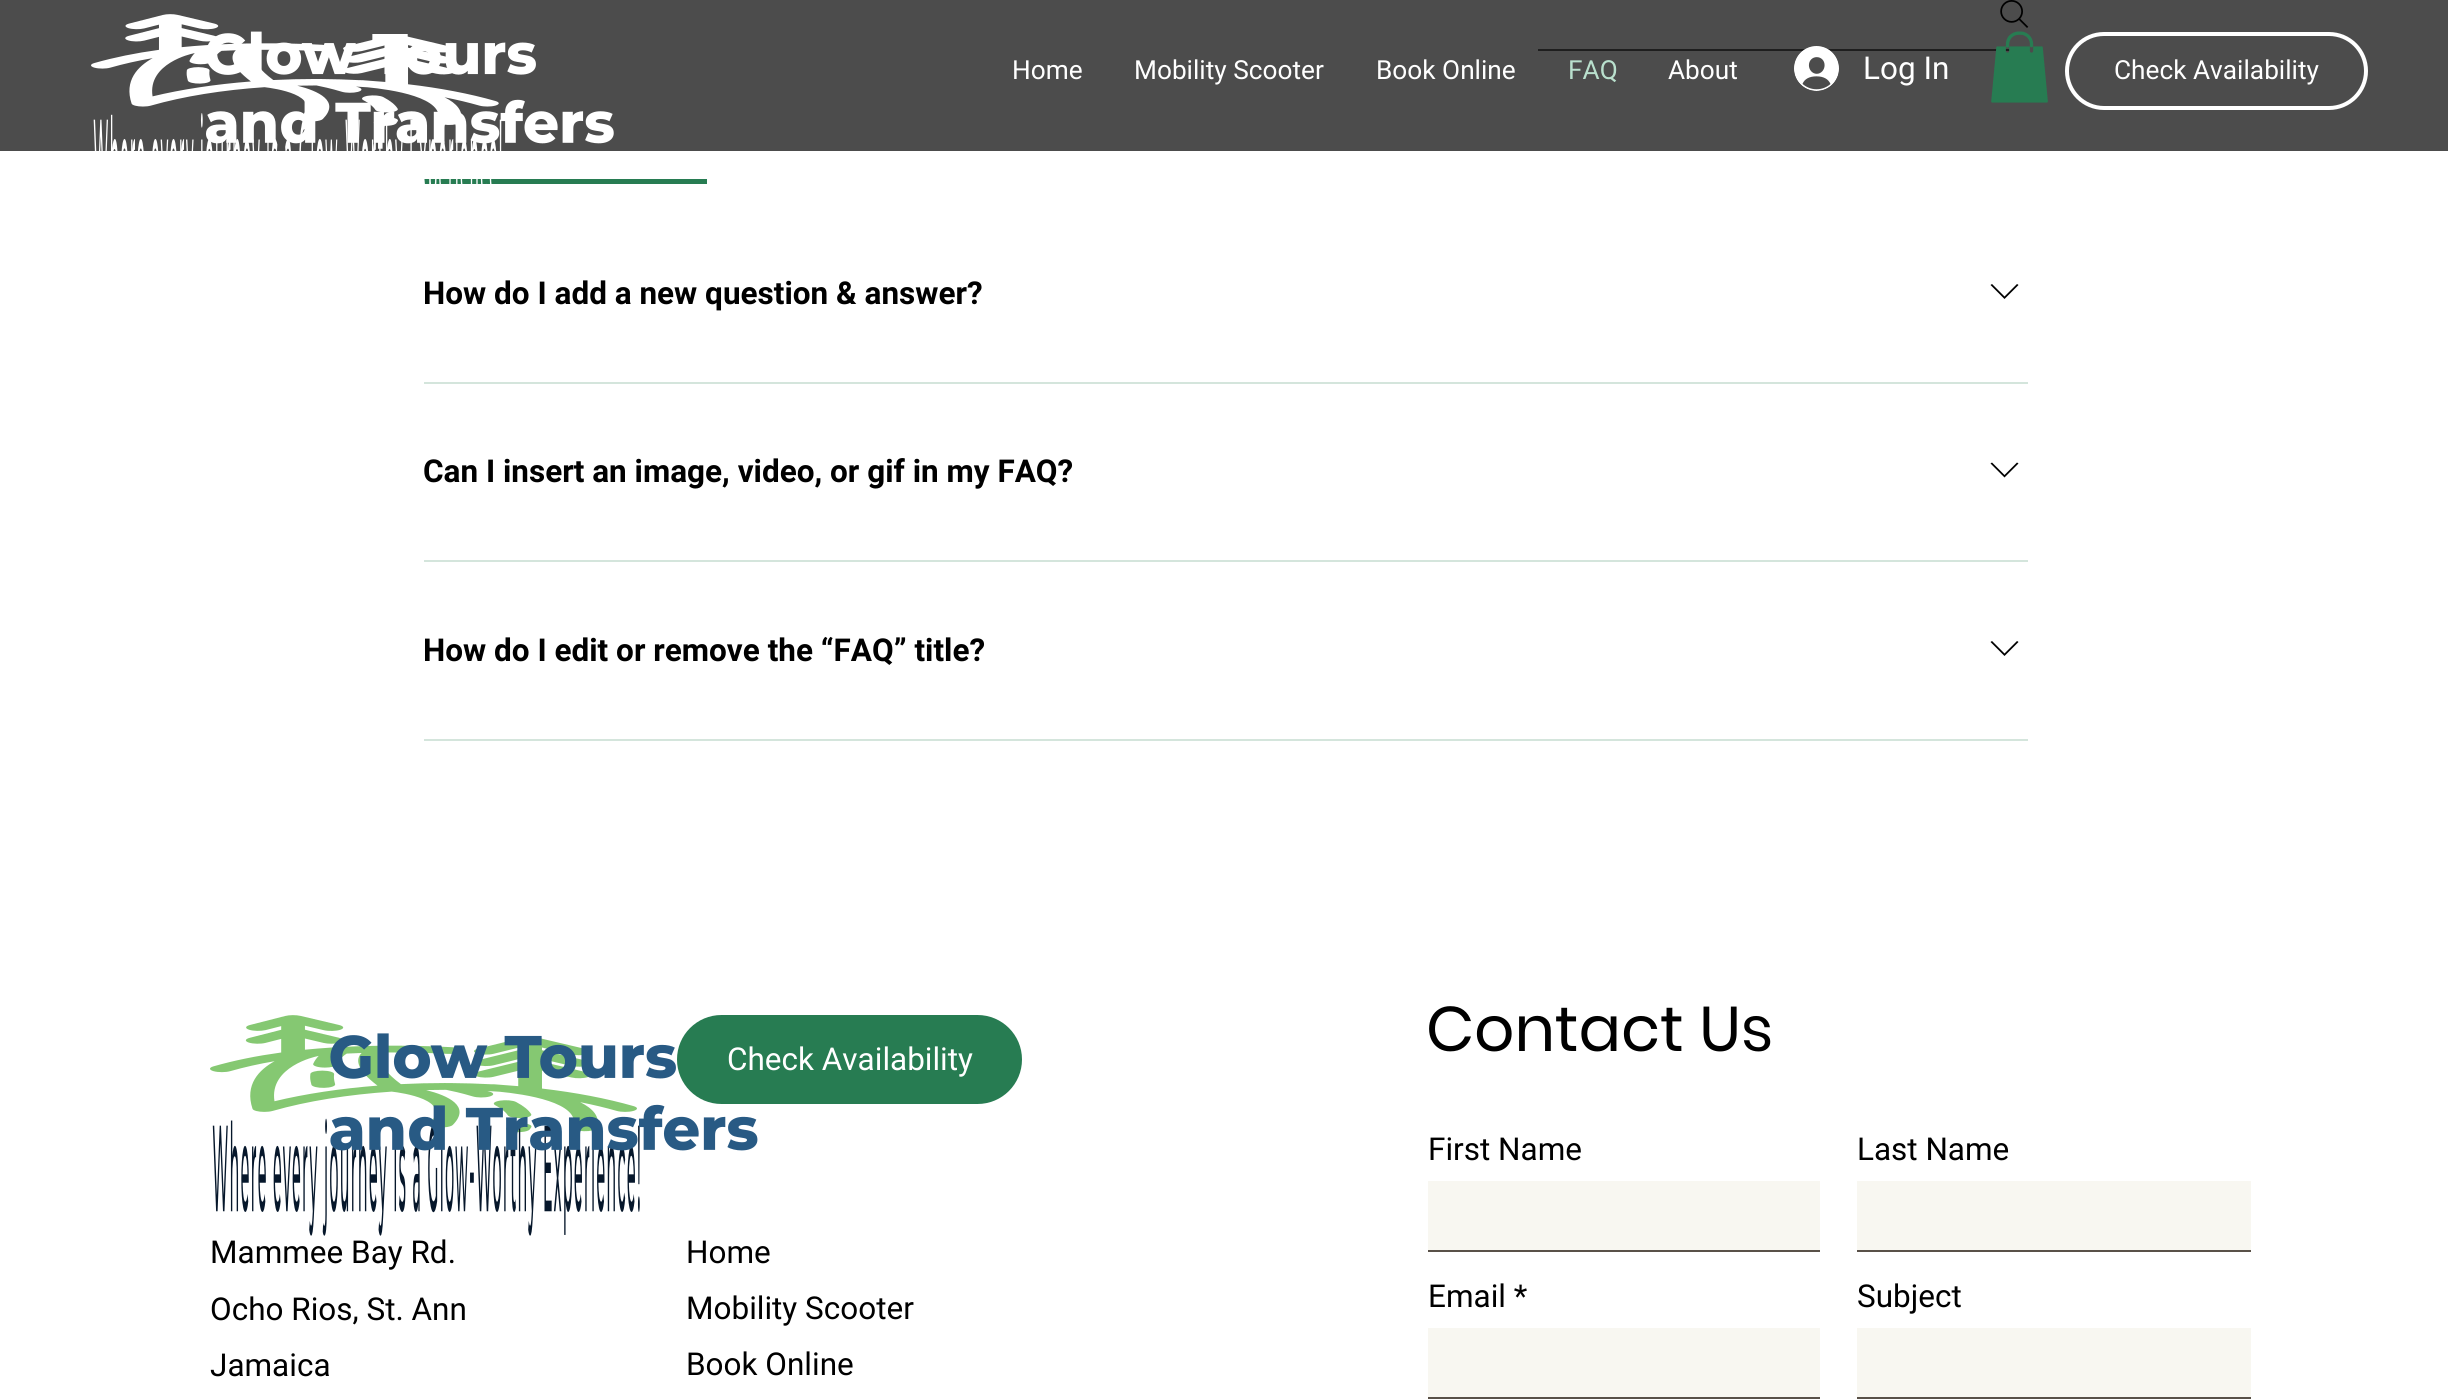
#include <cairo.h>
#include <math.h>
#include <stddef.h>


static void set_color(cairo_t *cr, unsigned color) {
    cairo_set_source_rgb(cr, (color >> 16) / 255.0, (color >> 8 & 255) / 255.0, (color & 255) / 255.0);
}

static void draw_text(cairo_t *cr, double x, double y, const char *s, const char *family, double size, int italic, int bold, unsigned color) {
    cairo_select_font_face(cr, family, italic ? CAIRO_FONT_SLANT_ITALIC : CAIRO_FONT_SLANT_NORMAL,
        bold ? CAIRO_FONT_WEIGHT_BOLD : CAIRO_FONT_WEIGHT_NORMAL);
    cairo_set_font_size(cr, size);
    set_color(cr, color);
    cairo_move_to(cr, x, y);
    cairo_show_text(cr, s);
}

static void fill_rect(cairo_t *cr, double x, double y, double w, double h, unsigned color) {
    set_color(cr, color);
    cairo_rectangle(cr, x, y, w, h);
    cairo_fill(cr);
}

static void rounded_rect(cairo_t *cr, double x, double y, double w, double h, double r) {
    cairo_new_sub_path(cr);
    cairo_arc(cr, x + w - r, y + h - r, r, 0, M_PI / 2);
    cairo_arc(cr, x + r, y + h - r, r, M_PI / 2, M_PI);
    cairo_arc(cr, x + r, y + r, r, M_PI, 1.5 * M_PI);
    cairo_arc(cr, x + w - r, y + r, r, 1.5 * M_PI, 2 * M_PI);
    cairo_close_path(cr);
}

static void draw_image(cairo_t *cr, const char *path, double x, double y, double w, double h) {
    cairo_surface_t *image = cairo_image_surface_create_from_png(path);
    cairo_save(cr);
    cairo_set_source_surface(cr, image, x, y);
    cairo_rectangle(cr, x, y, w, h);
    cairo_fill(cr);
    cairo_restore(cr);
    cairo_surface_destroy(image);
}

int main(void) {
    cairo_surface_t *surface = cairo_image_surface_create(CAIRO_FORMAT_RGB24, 2448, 1400);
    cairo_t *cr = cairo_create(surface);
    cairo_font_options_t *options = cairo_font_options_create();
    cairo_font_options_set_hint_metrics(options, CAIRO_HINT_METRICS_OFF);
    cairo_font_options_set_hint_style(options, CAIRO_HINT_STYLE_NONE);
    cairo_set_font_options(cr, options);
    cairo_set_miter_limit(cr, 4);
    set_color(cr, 0xFFFFFF);
    cairo_paint(cr);
    fill_rect(cr, 1538, 49, 472, 2, 0x666666);
    draw_image(cr, "assets/img4.png", 2000, 0, 29, 28);
    cairo_set_source_rgba(cr, 0, 0, 0, 0.7);
    cairo_rectangle(cr, 0, 0, 2448, 151);
    cairo_fill(cr);
    fill_rect(cr, 424, 179, 283, 5, 0x277C52);
    draw_image(cr, "assets/img1.png", 91, 14, 523, 170);
    draw_text(cr, 1012, 79, "Home", "Roboto", 26.25, 0, 0, 0xFFFFFF);
    draw_text(cr, 1134, 79, "Mobility Scooter", "Roboto", 26.25, 0, 0, 0xFFFFFF);
    draw_text(cr, 1376, 79, "Book Online", "Roboto", 26.25, 0, 0, 0xFFFFFF);
    draw_text(cr, 1568, 79, "FAQ", "Roboto", 26.25, 0, 0, 0xB9E0CD);
    draw_text(cr, 1668, 79, "About", "Roboto", 26.25, 0, 0, 0xFFFFFF);
    draw_image(cr, "assets/img2.png", 1794, 46, 45, 45);
    draw_text(cr, 1863, 79, "Log In", "Roboto", 31.5, 0, 0, 0xFFFFFF);
    draw_image(cr, "assets/img3.png", 1991, 31, 57, 72);
    rounded_rect(cr, 2067, 34, 299, 74, 37);
    cairo_set_line_width(cr, 4);
    cairo_stroke(cr);
    draw_text(cr, 2114, 79, "Check Availability", "Roboto", 26.25, 0, 0, 0xFFFFFF);
    draw_text(cr, 423, 304, "How do I add a new question & answer?", "Roboto", 31.5, 0, 1, 0x000000);
    cairo_set_fill_rule(cr, CAIRO_FILL_RULE_EVEN_ODD);
    cairo_new_path(cr);
    cairo_move_to(cr, 2017, 284);
    cairo_line_to(cr, 2018.5, 285);
    cairo_line_to(cr, 2004.5, 299);
    cairo_line_to(cr, 1990.5, 285);
    cairo_line_to(cr, 1992, 284);
    cairo_line_to(cr, 2004.5, 296.5);
    cairo_close_path(cr);
    cairo_fill(cr);
    fill_rect(cr, 424, 382, 1604, 2, 0xD4E5DC);
    draw_text(cr, 423, 482, "Can I insert an image, video, or gif in my FAQ?", "Roboto", 31.5, 0, 1, 0x000000);
    cairo_new_path(cr);
    cairo_move_to(cr, 2017, 462.5);
    cairo_line_to(cr, 2018.5, 463.5);
    cairo_line_to(cr, 2004.5, 477.5);
    cairo_line_to(cr, 1990.5, 463.5);
    cairo_line_to(cr, 1992, 462.5);
    cairo_line_to(cr, 2004.5, 475);
    cairo_close_path(cr);
    cairo_fill(cr);
    fill_rect(cr, 424, 560, 1604, 2, 0xD4E5DC);
    draw_text(cr, 423, 661, "How do I edit or remove the “FAQ” title?", "Roboto", 31.5, 0, 1, 0x000000);
    cairo_new_path(cr);
    cairo_move_to(cr, 2017, 641);
    cairo_line_to(cr, 2018.5, 642);
    cairo_line_to(cr, 2004.5, 656);
    cairo_line_to(cr, 1990.5, 642);
    cairo_line_to(cr, 1992, 641);
    cairo_line_to(cr, 2004.5, 653.5);
    cairo_close_path(cr);
    cairo_fill(cr);
    fill_rect(cr, 424, 739, 1604, 2, 0xD4E5DC);
    draw_image(cr, "assets/img5.png", 210, 1015, 548, 221);
    set_color(cr, 0x277C52);
    rounded_rect(cr, 677, 1015, 345, 89, 44.5);
    cairo_fill(cr);
    draw_text(cr, 727, 1070, "Check Availability", "Roboto", 31.5, 0, 0, 0xFFFFFF);
    draw_text(cr, 210, 1263, "Mammee Bay Rd.", "Roboto", 31.5, 0, 0, 0x000000);
    draw_text(cr, 210, 1320, "Ocho Rios, St. Ann", "Roboto", 31.5, 0, 0, 0x000000);
    draw_text(cr, 210, 1376, "Jamaica", "Roboto", 31.5, 0, 0, 0x000000);
    draw_text(cr, 686, 1263, "Home", "Roboto", 31.5, 0, 0, 0x000000);
    draw_text(cr, 686, 1319, "Mobility Scooter", "Roboto", 31.5, 0, 0, 0x000000);
    draw_text(cr, 686, 1375, "Book Online", "Roboto", 31.5, 0, 0, 0x000000);
    draw_text(cr, 1426, 1051, "Contact Us", "Poppins", 63, 0, 0, 0x000000);
    draw_text(cr, 1428, 1160, "First Name", "Roboto", 31.5, 0, 0, 0x000000);
    fill_rect(cr, 1428, 1181, 392, 69, 0xF8F7F1);
    fill_rect(cr, 1428, 1250, 392, 2, 0x595148);
    draw_text(cr, 1857, 1160, "Last Name", "Roboto", 31.5, 0, 0, 0x000000);
    fill_rect(cr, 1857, 1181, 394, 69, 0xF8F7F1);
    fill_rect(cr, 1857, 1250, 394, 2, 0x595148);
    draw_text(cr, 1428, 1307, "Email *", "Roboto", 31.5, 0, 0, 0x000000);
    fill_rect(cr, 1428, 1328, 392, 69, 0xF8F7F1);
    fill_rect(cr, 1428, 1397, 392, 2, 0x595148);
    draw_text(cr, 1857, 1307, "Subject", "Roboto", 31.5, 0, 0, 0x000000);
    fill_rect(cr, 1857, 1328, 394, 69, 0xF8F7F1);
    fill_rect(cr, 1857, 1397, 394, 2, 0x595148);
    cairo_surface_write_to_png(surface, "output.png");
    cairo_font_options_destroy(options);
    cairo_destroy(cr);
    cairo_surface_destroy(surface);
    return 0;
}
